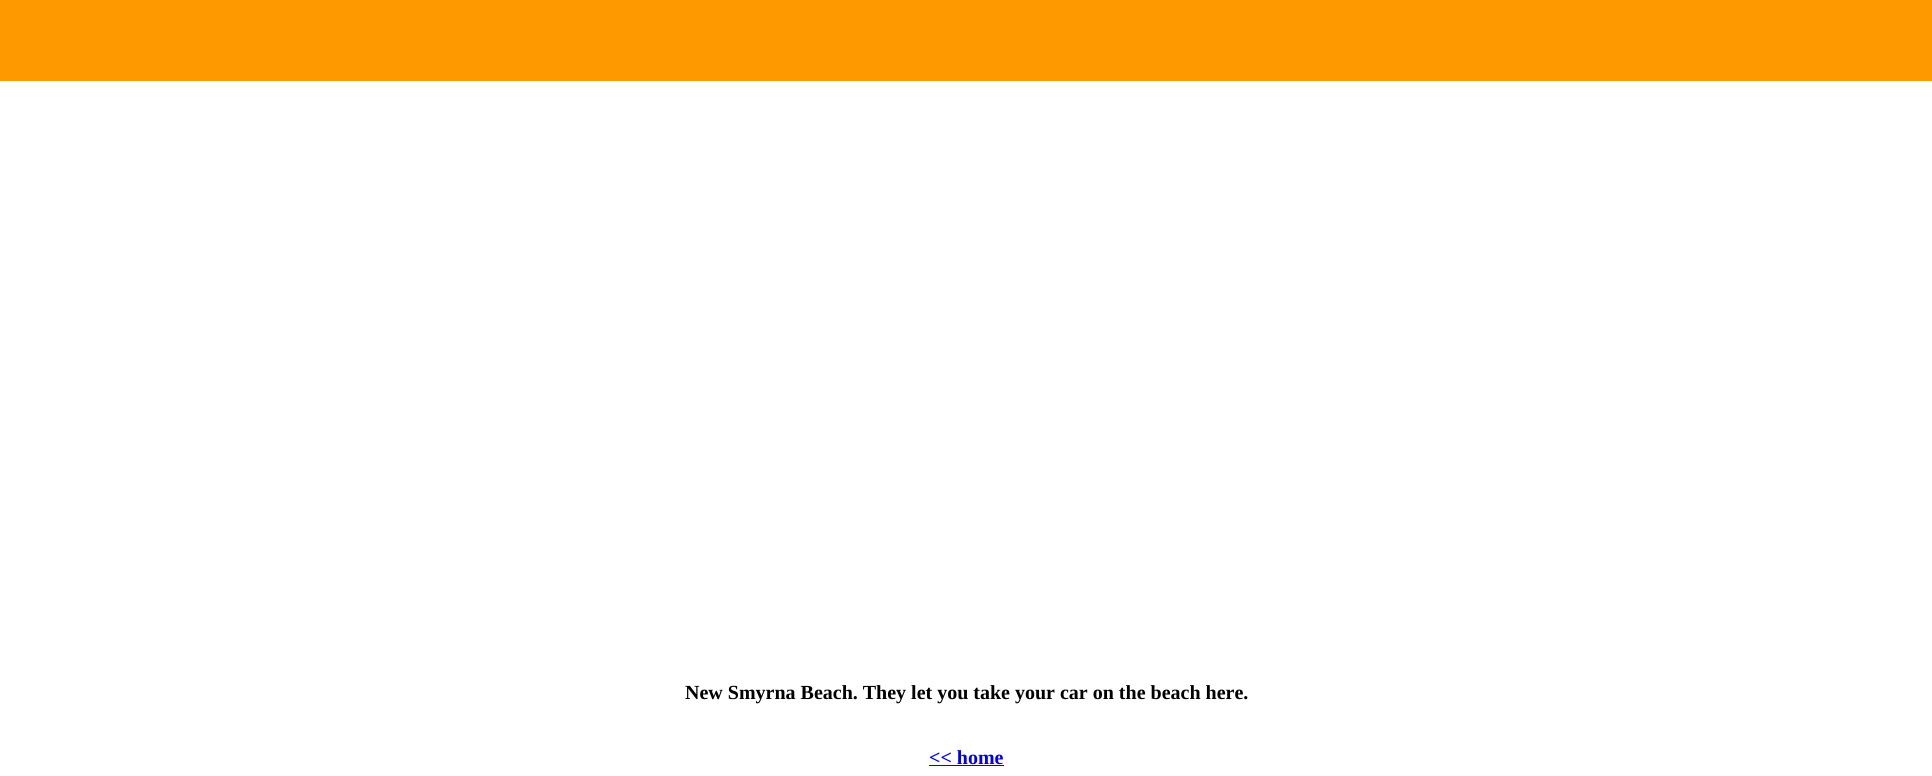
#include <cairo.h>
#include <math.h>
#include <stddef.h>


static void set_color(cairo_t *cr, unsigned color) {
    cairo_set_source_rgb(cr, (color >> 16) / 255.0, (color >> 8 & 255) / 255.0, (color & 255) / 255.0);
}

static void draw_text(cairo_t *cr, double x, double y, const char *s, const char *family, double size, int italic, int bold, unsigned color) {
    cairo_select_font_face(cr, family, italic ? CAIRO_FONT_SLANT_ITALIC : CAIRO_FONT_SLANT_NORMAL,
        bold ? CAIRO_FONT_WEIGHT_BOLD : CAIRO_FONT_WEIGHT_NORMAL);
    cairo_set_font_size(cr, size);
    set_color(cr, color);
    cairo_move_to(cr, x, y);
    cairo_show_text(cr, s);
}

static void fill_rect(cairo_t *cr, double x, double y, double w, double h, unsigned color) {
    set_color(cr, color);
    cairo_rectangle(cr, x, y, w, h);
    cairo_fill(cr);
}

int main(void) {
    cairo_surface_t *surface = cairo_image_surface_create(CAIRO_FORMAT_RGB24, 1932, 776);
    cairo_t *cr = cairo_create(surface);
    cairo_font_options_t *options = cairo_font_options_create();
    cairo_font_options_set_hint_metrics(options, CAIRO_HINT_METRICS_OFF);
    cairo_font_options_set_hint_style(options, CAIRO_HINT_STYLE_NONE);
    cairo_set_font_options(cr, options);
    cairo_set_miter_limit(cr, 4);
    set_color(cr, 0xFFFFFF);
    cairo_paint(cr);
    fill_rect(cr, 0, 0, 1932, 81, 0xFF9900);
    draw_text(cr, 685, 699, "New Smyrna Beach. They let you take your car on the beach here.", "Liberation Serif", 20, 0, 1, 0x000000);
    draw_text(cr, 929, 764, "<< home", "Liberation Serif", 20, 0, 1, 0x0000EE);
    fill_rect(cr, 929, 765, 75, 1, 0x0000EE);
    cairo_surface_write_to_png(surface, "output.png");
    cairo_font_options_destroy(options);
    cairo_destroy(cr);
    cairo_surface_destroy(surface);
    return 0;
}
